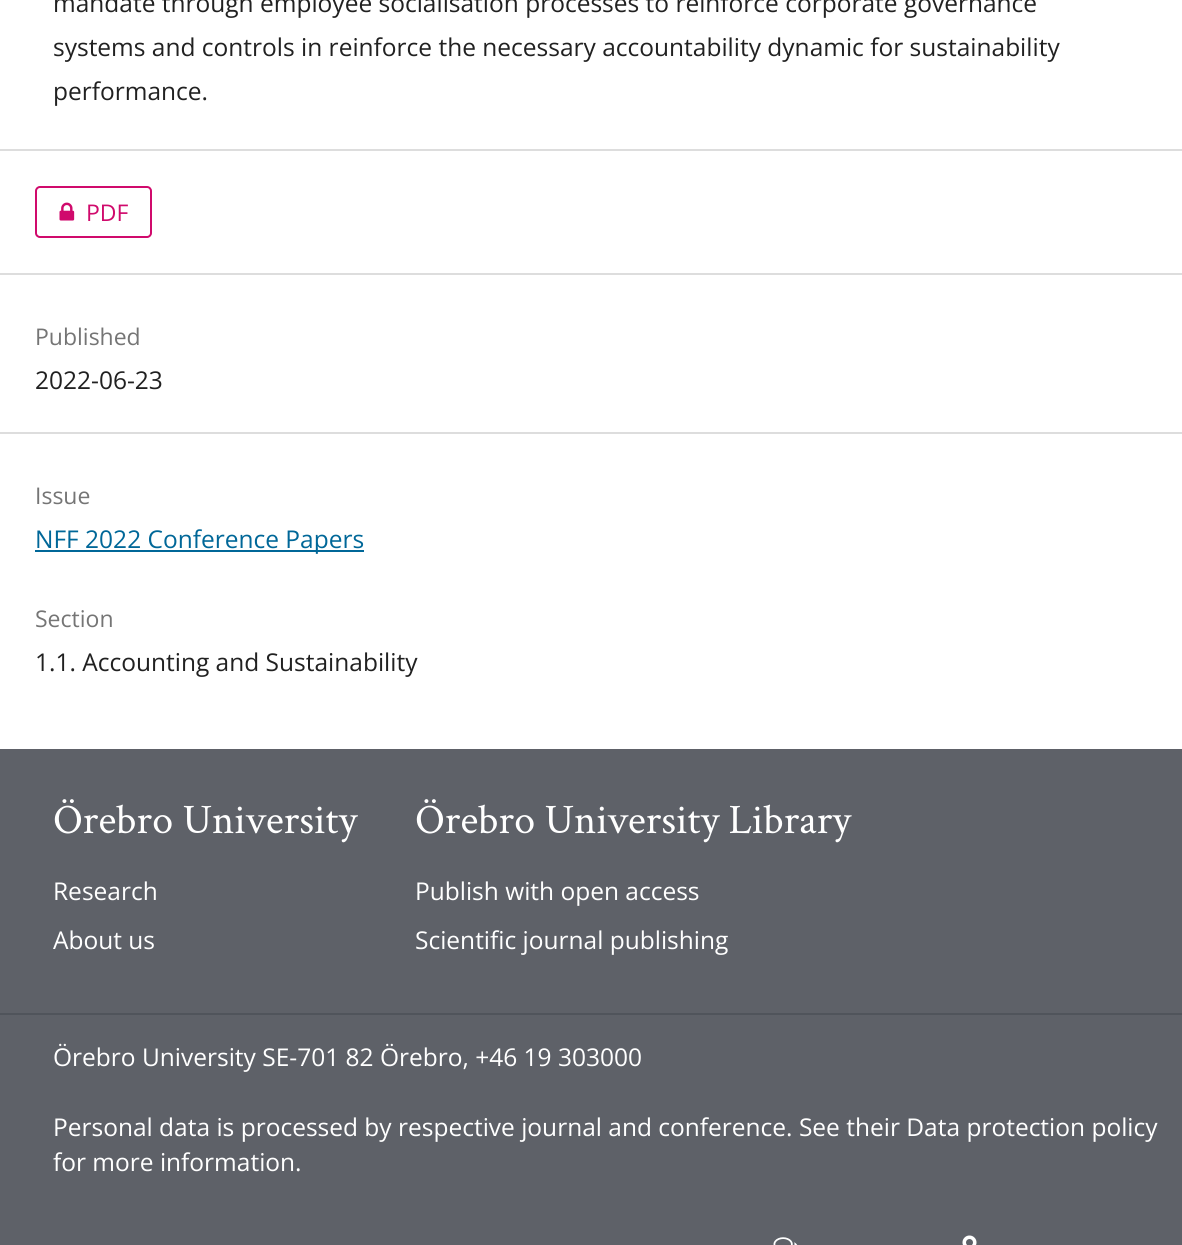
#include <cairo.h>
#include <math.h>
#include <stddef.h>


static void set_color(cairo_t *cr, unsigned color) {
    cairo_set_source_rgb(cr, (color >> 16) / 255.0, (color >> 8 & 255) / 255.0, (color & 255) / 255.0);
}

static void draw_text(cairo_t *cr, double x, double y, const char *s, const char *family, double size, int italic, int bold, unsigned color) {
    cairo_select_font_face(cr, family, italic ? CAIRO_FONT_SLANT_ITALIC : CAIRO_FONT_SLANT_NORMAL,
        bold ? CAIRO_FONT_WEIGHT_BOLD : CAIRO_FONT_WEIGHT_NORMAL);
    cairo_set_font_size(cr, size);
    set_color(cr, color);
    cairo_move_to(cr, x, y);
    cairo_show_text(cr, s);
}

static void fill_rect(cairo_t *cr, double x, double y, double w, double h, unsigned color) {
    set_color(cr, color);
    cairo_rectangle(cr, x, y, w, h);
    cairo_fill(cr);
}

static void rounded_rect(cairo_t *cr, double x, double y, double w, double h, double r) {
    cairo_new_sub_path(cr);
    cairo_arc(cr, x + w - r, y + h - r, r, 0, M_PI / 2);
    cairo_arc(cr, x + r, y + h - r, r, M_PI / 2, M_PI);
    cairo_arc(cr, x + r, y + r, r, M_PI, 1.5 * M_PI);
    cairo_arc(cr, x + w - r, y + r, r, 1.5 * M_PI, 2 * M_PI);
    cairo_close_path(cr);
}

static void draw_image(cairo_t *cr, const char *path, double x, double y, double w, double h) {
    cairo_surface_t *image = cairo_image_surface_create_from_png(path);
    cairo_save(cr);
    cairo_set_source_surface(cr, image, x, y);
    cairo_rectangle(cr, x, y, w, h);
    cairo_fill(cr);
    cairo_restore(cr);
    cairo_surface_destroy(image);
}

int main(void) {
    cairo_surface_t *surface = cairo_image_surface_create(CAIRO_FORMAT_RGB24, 1182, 1245);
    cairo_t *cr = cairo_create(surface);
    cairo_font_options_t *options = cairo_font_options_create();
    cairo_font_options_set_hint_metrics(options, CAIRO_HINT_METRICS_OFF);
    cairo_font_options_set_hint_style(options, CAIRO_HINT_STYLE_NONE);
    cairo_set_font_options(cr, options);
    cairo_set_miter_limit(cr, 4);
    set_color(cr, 0x5E6168);
    cairo_paint(cr);
    fill_rect(cr, 0, 0, 1182, 749, 0xFFFFFF);
    draw_text(cr, 53, 12, "mandate through employee socialisation processes to reinforce corporate governance", "Open Sans", 24.5, 0, 0, 0x212121);
    draw_text(cr, 53, 56, "systems and controls in reinforce the necessary accountability dynamic for sustainability", "Open Sans", 24.5, 0, 0, 0x212121);
    draw_text(cr, 53, 100, "performance.", "Open Sans", 24.5, 0, 0, 0x212121);
    fill_rect(cr, 0, 149, 1182, 2, 0xDDDDDD);
    fill_rect(cr, 0, 273, 1182, 2, 0xDDDDDD);
    rounded_rect(cr, 36, 187, 115, 50, 4);
    set_color(cr, 0xD00A6C);
    cairo_stroke(cr);
    draw_image(cr, "assets/img1.png", 59, 202, 16, 19);
    draw_text(cr, 86, 221, "PDF", "Open Sans", 23, 0, 0, 0xD00A6C);
    fill_rect(cr, 0, 432, 1182, 2, 0xDDDDDD);
    draw_text(cr, 35, 345, "Published", "Open Sans", 23, 0, 0, 0x757575);
    draw_text(cr, 35, 389, "2022-06-23", "Open Sans", 24.5, 0, 0, 0x212121);
    draw_text(cr, 35, 504, "Issue", "Open Sans", 23, 0, 0, 0x757575);
    fill_rect(cr, 35, 550, 329, 2, 0x006798);
    draw_text(cr, 35, 548, "NFF 2022 Conference Papers", "Open Sans", 24.5, 0, 0, 0x006798);
    draw_text(cr, 35, 627, "Section", "Open Sans", 23, 0, 0, 0x757575);
    draw_text(cr, 35, 671, "1.1. Accounting and Sustainability", "Open Sans", 24.5, 0, 0, 0x212121);
    draw_text(cr, 53, 833, "Örebro University", "Crimson Text", 42, 0, 0, 0xFFFFFF);
    draw_text(cr, 53, 900, "Research", "Open Sans", 24.5, 0, 0, 0xFFFFFF);
    draw_text(cr, 53, 949, "About us", "Open Sans", 24.5, 0, 0, 0xFFFFFF);
    draw_text(cr, 415, 833, "Örebro University Library", "Crimson Text", 42, 0, 0, 0xFFFFFF);
    draw_text(cr, 415, 900, "Publish with open access", "Open Sans", 24.5, 0, 0, 0xFFFFFF);
    draw_text(cr, 415, 949, "Scientific journal publishing", "Open Sans", 24.5, 0, 0, 0xFFFFFF);
    fill_rect(cr, 0, 1013, 1182, 2, 0x50545B);
    draw_text(cr, 53, 1066, "Örebro University SE-701 82 Örebro, +46 19 303000", "Open Sans", 24.5, 0, 0, 0xFFFFFF);
    draw_text(cr, 53, 1136, "Personal data is processed by respective journal and conference. See their Data protection policy", "Open Sans", 24.5, 0, 0, 0xFFFFFF);
    draw_text(cr, 53, 1171, "for more information.", "Open Sans", 24.5, 0, 0, 0xFFFFFF);
    draw_image(cr, "assets/img2.png", 773, 1237, 25, 8);
    draw_image(cr, "assets/img3.png", 962, 1235, 15, 10);
    cairo_surface_write_to_png(surface, "output.png");
    cairo_font_options_destroy(options);
    cairo_destroy(cr);
    cairo_surface_destroy(surface);
    return 0;
}
